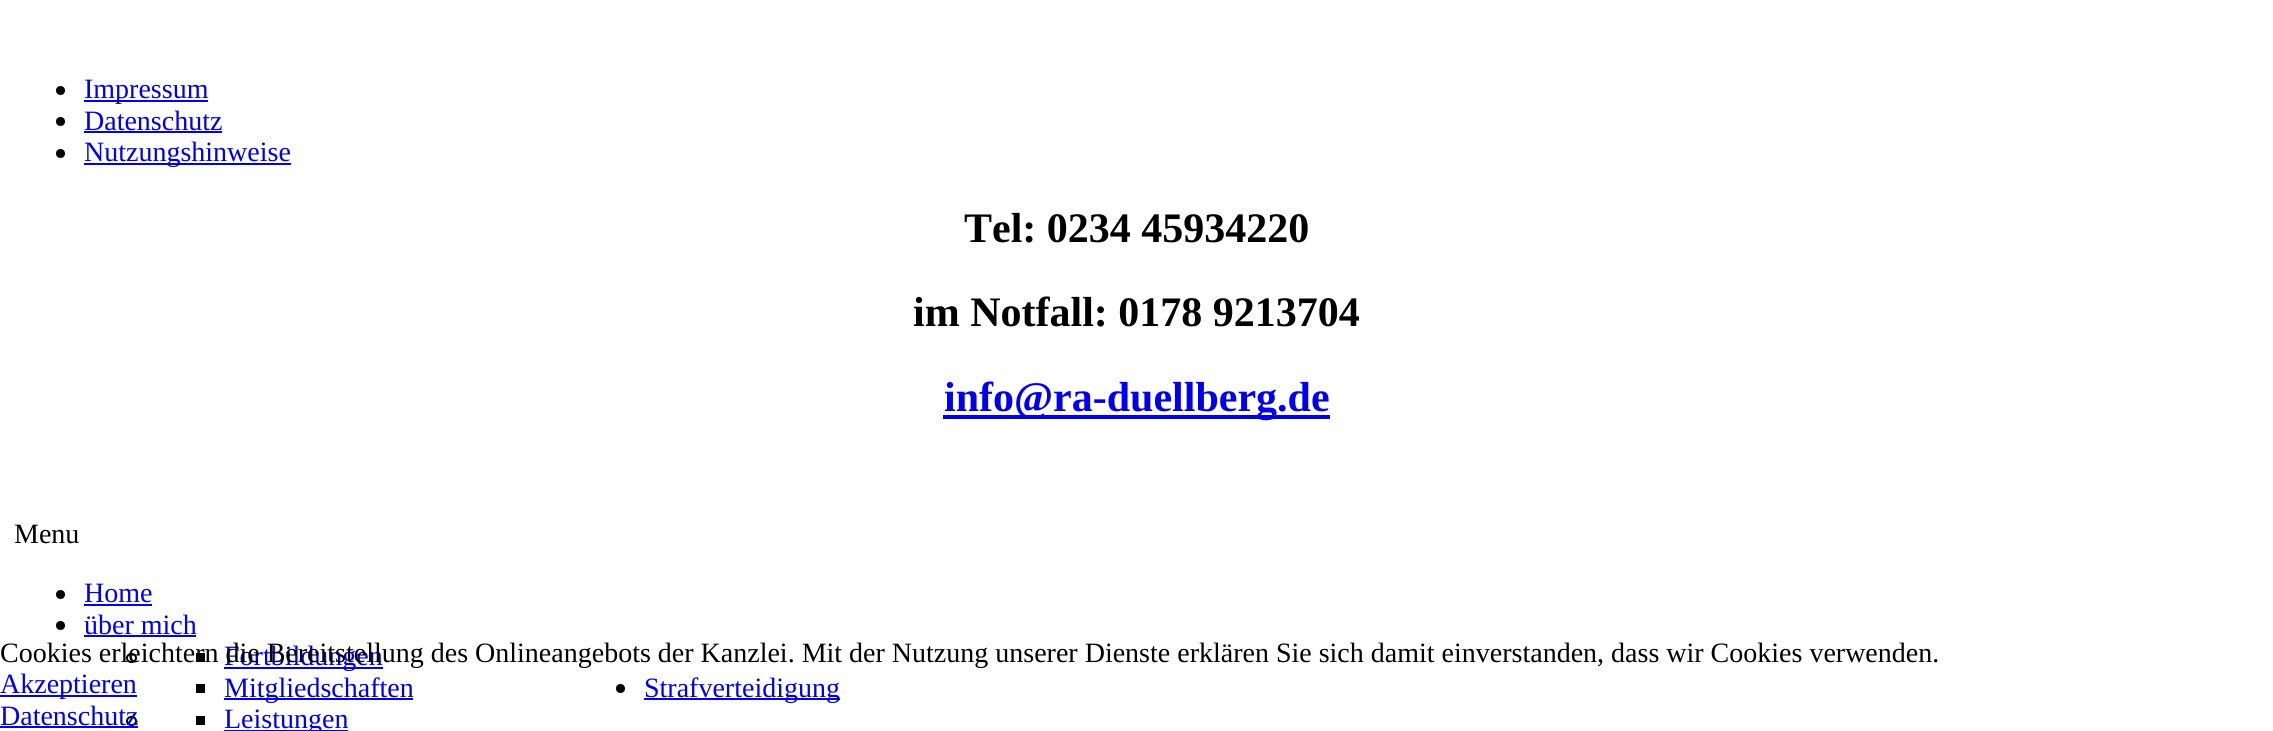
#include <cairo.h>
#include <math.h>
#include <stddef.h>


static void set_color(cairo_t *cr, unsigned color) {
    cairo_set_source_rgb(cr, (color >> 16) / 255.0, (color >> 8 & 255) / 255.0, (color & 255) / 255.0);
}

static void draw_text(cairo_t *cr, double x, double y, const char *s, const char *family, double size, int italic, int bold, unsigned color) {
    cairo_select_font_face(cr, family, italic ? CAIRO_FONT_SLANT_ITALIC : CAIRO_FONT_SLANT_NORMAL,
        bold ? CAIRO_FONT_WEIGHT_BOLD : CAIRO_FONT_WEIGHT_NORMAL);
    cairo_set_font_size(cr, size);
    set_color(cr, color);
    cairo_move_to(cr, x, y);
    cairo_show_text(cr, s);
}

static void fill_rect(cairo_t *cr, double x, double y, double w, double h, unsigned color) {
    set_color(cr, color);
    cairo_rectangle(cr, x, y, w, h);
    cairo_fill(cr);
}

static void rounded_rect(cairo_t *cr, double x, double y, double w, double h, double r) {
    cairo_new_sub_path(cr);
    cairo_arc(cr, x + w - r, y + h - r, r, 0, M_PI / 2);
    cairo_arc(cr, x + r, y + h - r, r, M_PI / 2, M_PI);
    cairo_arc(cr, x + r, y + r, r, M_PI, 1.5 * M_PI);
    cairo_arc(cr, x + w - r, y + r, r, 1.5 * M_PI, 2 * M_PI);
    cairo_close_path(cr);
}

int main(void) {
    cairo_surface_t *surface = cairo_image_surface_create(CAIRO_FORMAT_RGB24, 2273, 731);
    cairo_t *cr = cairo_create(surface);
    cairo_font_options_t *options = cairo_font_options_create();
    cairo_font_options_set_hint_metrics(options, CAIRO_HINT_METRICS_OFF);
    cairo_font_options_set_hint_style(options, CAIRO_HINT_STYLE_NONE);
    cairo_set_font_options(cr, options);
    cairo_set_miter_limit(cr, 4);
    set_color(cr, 0xFFFFFF);
    cairo_paint(cr);
    set_color(cr, 0x000000);
    cairo_arc(cr, 60.5, 90.5, 4.5, 0, 2 * M_PI);
    cairo_fill(cr);
    fill_rect(cr, 84, 100, 124, 2, 0x0000EE);
    draw_text(cr, 84, 98, "Impressum", "Liberation Serif", 28, 0, 0, 0x0000EE);
    set_color(cr, 0x000000);
    cairo_new_path(cr);
    cairo_arc(cr, 60.5, 121.5, 4.5, 0, 2 * M_PI);
    cairo_fill(cr);
    draw_text(cr, 84, 130, "Datenschutz", "Liberation Serif", 28, 0, 0, 0x0000EE);
    fill_rect(cr, 84, 131, 138, 2, 0x0000EE);
    set_color(cr, 0x000000);
    cairo_new_path(cr);
    cairo_arc(cr, 60.5, 153.5, 4.5, 0, 2 * M_PI);
    cairo_fill(cr);
    fill_rect(cr, 84, 163, 207, 2, 0x0000EE);
    draw_text(cr, 84, 161, "Nutzungshinweise", "Liberation Serif", 28, 0, 0, 0x0000EE);
    draw_text(cr, 964, 242, "Tel: 0234 45934220", "Liberation Serif", 42, 0, 1, 0x000000);
    draw_text(cr, 913, 326, "im Notfall: 0178 9213704", "Liberation Serif", 42, 0, 1, 0x000000);
    fill_rect(cr, 943, 415, 387, 4, 0x0000EE);
    draw_text(cr, 944, 411, "info@ra-duellberg.de", "Liberation Serif", 42, 0, 1, 0x0000EE);
    draw_text(cr, 14, 543, "Menu", "Liberation Serif", 28, 0, 0, 0x000000);
    cairo_new_path(cr);
    cairo_arc(cr, 60.5, 594.5, 4.5, 0, 2 * M_PI);
    cairo_fill(cr);
    draw_text(cr, 84, 602, "Home", "Liberation Serif", 28, 0, 0, 0x0000EE);
    fill_rect(cr, 84, 604, 68, 2, 0x0000EE);
    set_color(cr, 0x000000);
    cairo_new_path(cr);
    cairo_arc(cr, 60.5, 625.5, 4.5, 0, 2 * M_PI);
    cairo_fill(cr);
    draw_text(cr, 84, 634, "über mich", "Liberation Serif", 28, 0, 0, 0x0000EE);
    fill_rect(cr, 84, 635, 112, 2, 0x0000EE);
    rounded_rect(cr, 127, 654, 9, 8, 4);
    set_color(cr, 0x000000);
    cairo_stroke(cr);
    fill_rect(cr, 196, 653, 9, 9, 0x000000);
    fill_rect(cr, 224, 667, 159, 2, 0x0000EE);
    draw_text(cr, 224, 665, "Fortbildungen", "Liberation Serif", 28, 0, 0, 0x0000EE);
    fill_rect(cr, 196, 684, 9, 9, 0x000000);
    fill_rect(cr, 224, 698, 189, 2, 0x0000EE);
    draw_text(cr, 224, 697, "Mitgliedschaften", "Liberation Serif", 28, 0, 0, 0x0000EE);
    set_color(cr, 0x000000);
    cairo_new_path(cr);
    cairo_arc(cr, 620.5, 688.5, 4.5, 0, 2 * M_PI);
    cairo_fill(cr);
    fill_rect(cr, 644, 698, 196, 2, 0x0000EE);
    draw_text(cr, 644, 697, "Strafverteidigung", "Liberation Serif", 28, 0, 0, 0x0000EE);
    rounded_rect(cr, 127, 717, 9, 8, 4);
    set_color(cr, 0x000000);
    cairo_stroke(cr);
    fill_rect(cr, 196, 716, 9, 9, 0x000000);
    fill_rect(cr, 224, 730, 124, 1, 0x0000EE);
    draw_text(cr, 224, 728, "Leistungen", "Liberation Serif", 28, 0, 0, 0x0000EE);
    draw_text(cr, 0, 662, "Cookies erleichtern die Bereitstellung des Onlineangebots der Kanzlei. Mit der Nutzung unserer Dienste erklären Sie sich damit einverstanden, dass wir Cookies verwenden.", "Liberation Serif", 28, 0, 0, 0x000000);
    fill_rect(cr, 0, 695, 137, 2, 0x0000EE);
    draw_text(cr, 0, 693, "Akzeptieren", "Liberation Serif", 28, 0, 0, 0x0000EE);
    draw_text(cr, 0, 725, "Datenschutz", "Liberation Serif", 28, 0, 0, 0x0000EE);
    fill_rect(cr, 0, 726, 138, 2, 0x0000EE);
    cairo_surface_write_to_png(surface, "output.png");
    cairo_font_options_destroy(options);
    cairo_destroy(cr);
    cairo_surface_destroy(surface);
    return 0;
}
